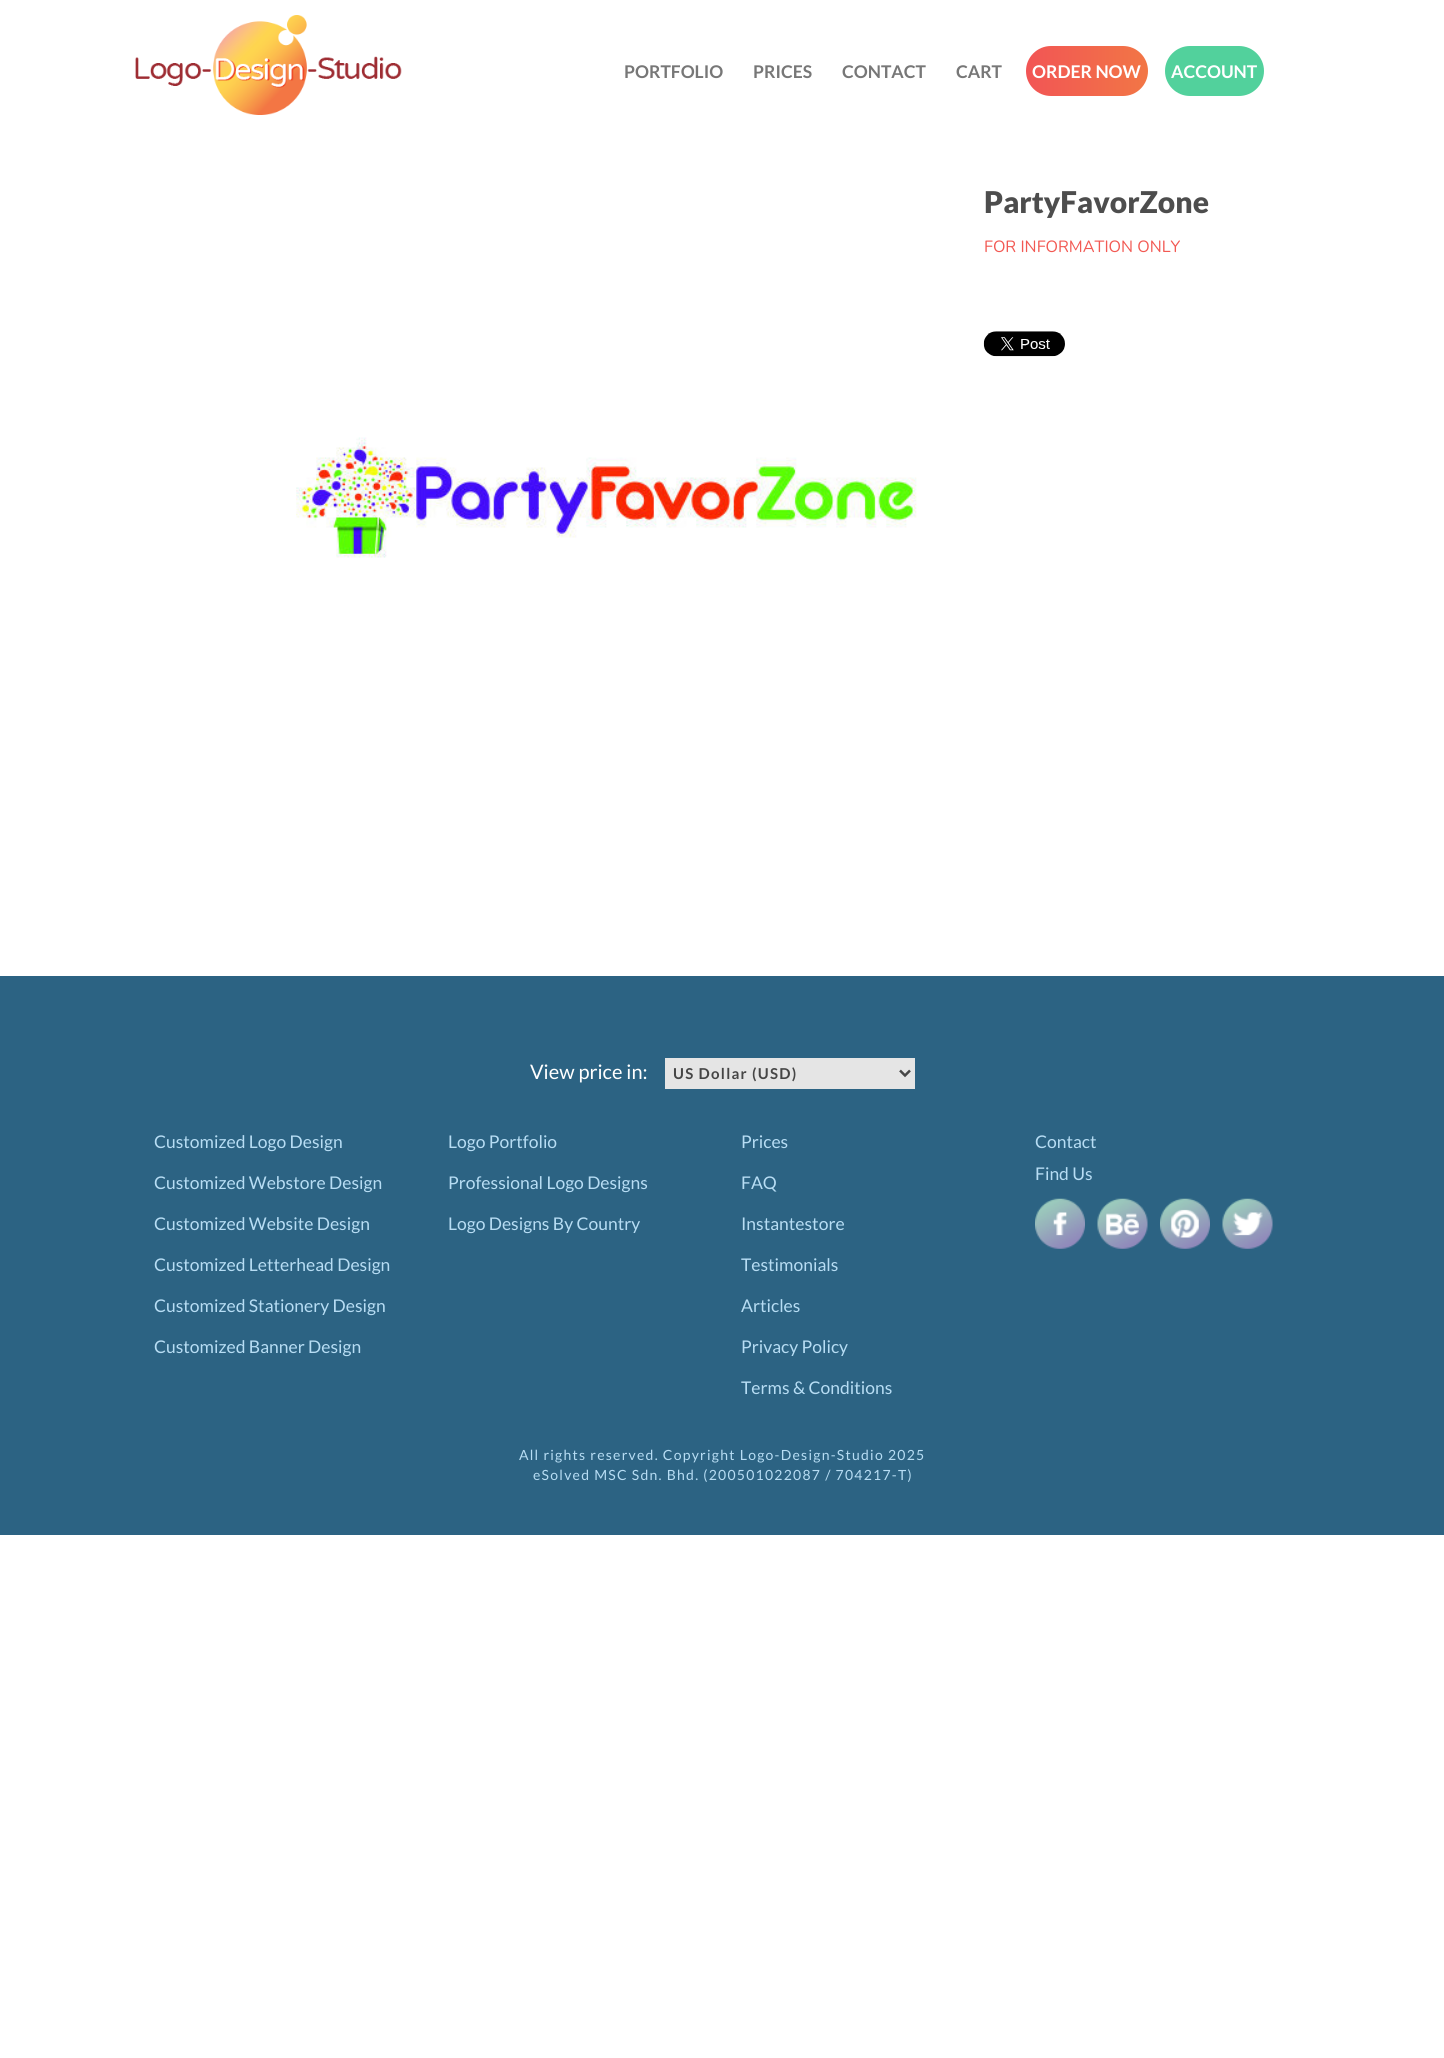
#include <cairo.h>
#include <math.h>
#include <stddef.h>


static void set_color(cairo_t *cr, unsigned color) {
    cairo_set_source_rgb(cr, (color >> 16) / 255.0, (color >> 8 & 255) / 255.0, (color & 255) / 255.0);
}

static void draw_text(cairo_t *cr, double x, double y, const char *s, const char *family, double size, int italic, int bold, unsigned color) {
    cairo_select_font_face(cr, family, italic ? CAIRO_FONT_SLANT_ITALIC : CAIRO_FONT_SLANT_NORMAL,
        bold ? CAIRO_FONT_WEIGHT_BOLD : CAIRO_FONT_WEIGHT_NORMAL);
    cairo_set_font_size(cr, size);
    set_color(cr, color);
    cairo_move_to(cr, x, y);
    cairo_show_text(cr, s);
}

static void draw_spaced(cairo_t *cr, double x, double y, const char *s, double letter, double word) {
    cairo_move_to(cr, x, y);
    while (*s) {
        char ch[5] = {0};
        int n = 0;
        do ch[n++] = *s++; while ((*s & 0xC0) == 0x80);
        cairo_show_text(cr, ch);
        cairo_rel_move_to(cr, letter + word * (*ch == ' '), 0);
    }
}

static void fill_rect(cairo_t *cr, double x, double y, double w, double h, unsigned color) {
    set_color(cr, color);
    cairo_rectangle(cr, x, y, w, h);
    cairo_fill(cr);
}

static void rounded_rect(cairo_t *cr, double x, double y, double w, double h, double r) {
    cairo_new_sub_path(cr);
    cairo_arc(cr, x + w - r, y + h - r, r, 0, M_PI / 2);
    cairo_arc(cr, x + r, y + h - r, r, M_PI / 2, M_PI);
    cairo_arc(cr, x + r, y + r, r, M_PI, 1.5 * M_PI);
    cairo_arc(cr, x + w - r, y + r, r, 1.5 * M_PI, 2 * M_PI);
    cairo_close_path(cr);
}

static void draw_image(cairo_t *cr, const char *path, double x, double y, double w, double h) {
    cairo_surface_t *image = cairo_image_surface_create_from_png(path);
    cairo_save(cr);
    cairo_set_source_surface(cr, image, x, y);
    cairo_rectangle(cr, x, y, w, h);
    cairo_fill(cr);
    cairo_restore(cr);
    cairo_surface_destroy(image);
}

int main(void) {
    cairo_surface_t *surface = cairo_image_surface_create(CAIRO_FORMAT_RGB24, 1444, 2058);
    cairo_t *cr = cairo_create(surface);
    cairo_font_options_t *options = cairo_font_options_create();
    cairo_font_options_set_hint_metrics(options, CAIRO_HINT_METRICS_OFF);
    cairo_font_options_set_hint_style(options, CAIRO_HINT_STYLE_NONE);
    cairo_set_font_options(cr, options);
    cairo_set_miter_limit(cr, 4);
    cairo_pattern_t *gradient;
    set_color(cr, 0xFFFFFF);
    cairo_paint(cr);
    draw_image(cr, "assets/img1.png", 135, 15, 267, 100);
    draw_text(cr, 624, 78, "PORTFOLIO", "Lato", 17.5, 0, 1, 0x777777);
    draw_text(cr, 753, 78, "PRICES", "Lato", 17.5, 0, 1, 0x777777);
    draw_text(cr, 842, 78, "CONTACT", "Lato", 17.5, 0, 1, 0x777777);
    draw_text(cr, 956, 78, "CART", "Lato", 17.5, 0, 1, 0x777777);
    gradient = cairo_pattern_create_linear(1026, 71, 1148, 71);
    cairo_pattern_add_color_stop_rgba(gradient, 0, 0.949, 0.333, 0.333, 1);
    cairo_pattern_add_color_stop_rgba(gradient, 1, 0.949, 0.463, 0.271, 1);
    cairo_set_source(cr, gradient);
    cairo_pattern_destroy(gradient);
    rounded_rect(cr, 1026, 46, 122, 50, 25);
    cairo_fill(cr);
    draw_text(cr, 1032, 78, "ORDER NOW", "Lato", 17.5, 0, 1, 0xFFFFFF);
    set_color(cr, 0x52D19C);
    rounded_rect(cr, 1165, 46, 99, 50, 25);
    cairo_fill(cr);
    draw_text(cr, 1171, 78, "ACCOUNT", "Lato", 17.5, 0, 1, 0xFFFFFF);
    draw_text(cr, 984, 213, "PartyFavorZone", "Lato Black", 30, 0, 0, 0x4D4D4D);
    draw_text(cr, 984, 252, "FOR INFORMATION ONLY", "Nunito", 16.25, 0, 0, 0xF25953);
    draw_image(cr, "assets/img2.png", 983, 331, 82, 26);
    draw_image(cr, "assets/img3.png", 296, 437, 621, 121);
    fill_rect(cr, 0, 976, 1444, 559, 0x2C6383);
    draw_text(cr, 530, 1079, "View price in:", "Lato", 20, 0, 0, 0xFFFFFF);
    fill_rect(cr, 665, 1058, 250, 31, 0xE5E5E5);
    cairo_new_path(cr);
    cairo_move_to(cr, 900, 1070.5);
    cairo_line_to(cr, 905, 1075.5);
    cairo_line_to(cr, 910, 1070.5);
    set_color(cr, 0x464646);
    cairo_set_line_width(cr, 2.5);
    cairo_stroke(cr);
    cairo_select_font_face(cr, "Lato", CAIRO_FONT_SLANT_NORMAL, CAIRO_FONT_WEIGHT_BOLD);
    cairo_set_font_size(cr, 15);
    draw_spaced(cr, 673, 1079, "US Dollar (USD)", 1.25, 0);
    draw_text(cr, 154, 1148, "Customized Logo Design", "Lato", 17.5, 0, 0, 0xB7DDF4);
    draw_text(cr, 154, 1189, "Customized Webstore Design", "Lato", 17.5, 0, 0, 0xB7DDF4);
    draw_text(cr, 154, 1230, "Customized Website Design", "Lato", 17.5, 0, 0, 0xB7DDF4);
    draw_text(cr, 154, 1271, "Customized Letterhead Design", "Lato", 17.5, 0, 0, 0xB7DDF4);
    draw_text(cr, 154, 1312, "Customized Stationery Design", "Lato", 17.5, 0, 0, 0xB7DDF4);
    draw_text(cr, 154, 1353, "Customized Banner Design", "Lato", 17.5, 0, 0, 0xB7DDF4);
    draw_text(cr, 448, 1148, "Logo Portfolio", "Lato", 17.5, 0, 0, 0xB7DDF4);
    draw_text(cr, 448, 1189, "Professional Logo Designs", "Lato", 17.5, 0, 0, 0xB7DDF4);
    draw_text(cr, 448, 1230, "Logo Designs By Country", "Lato", 17.5, 0, 0, 0xB7DDF4);
    draw_text(cr, 741, 1148, "Prices", "Lato", 17.5, 0, 0, 0xB7DDF4);
    draw_text(cr, 741, 1189, "FAQ", "Lato", 17.5, 0, 0, 0xB7DDF4);
    draw_text(cr, 741, 1230, "Instantestore", "Lato", 17.5, 0, 0, 0xB7DDF4);
    draw_text(cr, 741, 1271, "Testimonials", "Lato", 17.5, 0, 0, 0xB7DDF4);
    draw_text(cr, 741, 1312, "Articles", "Lato", 17.5, 0, 0, 0xB7DDF4);
    draw_text(cr, 741, 1353, "Privacy Policy", "Lato", 17.5, 0, 0, 0xB7DDF4);
    draw_text(cr, 741, 1394, "Terms & Conditions", "Lato", 17.5, 0, 0, 0xB7DDF4);
    draw_text(cr, 1035, 1148, "Contact", "Lato", 17.5, 0, 0, 0xB7DDF4);
    draw_text(cr, 1035, 1180, "Find Us", "Lato", 17.5, 0, 0, 0xB7DDF4);
    draw_image(cr, "assets/img4.png", 1035, 1198, 50, 51);
    draw_image(cr, "assets/img5.png", 1097, 1198, 51, 51);
    draw_image(cr, "assets/img6.png", 1160, 1198, 50, 51);
    draw_image(cr, "assets/img7.png", 1222, 1198, 51, 51);
    cairo_set_font_size(cr, 14);
    draw_spaced(cr, 519, 1460, "All rights reserved. Copyright Logo-Design-Studio 2025", 1.25, 0);
    draw_spaced(cr, 533, 1480, "eSolved MSC Sdn. Bhd. (200501022087 / 704217-T)", 1.25, 0);
    cairo_surface_write_to_png(surface, "output.png");
    cairo_font_options_destroy(options);
    cairo_destroy(cr);
    cairo_surface_destroy(surface);
    return 0;
}
